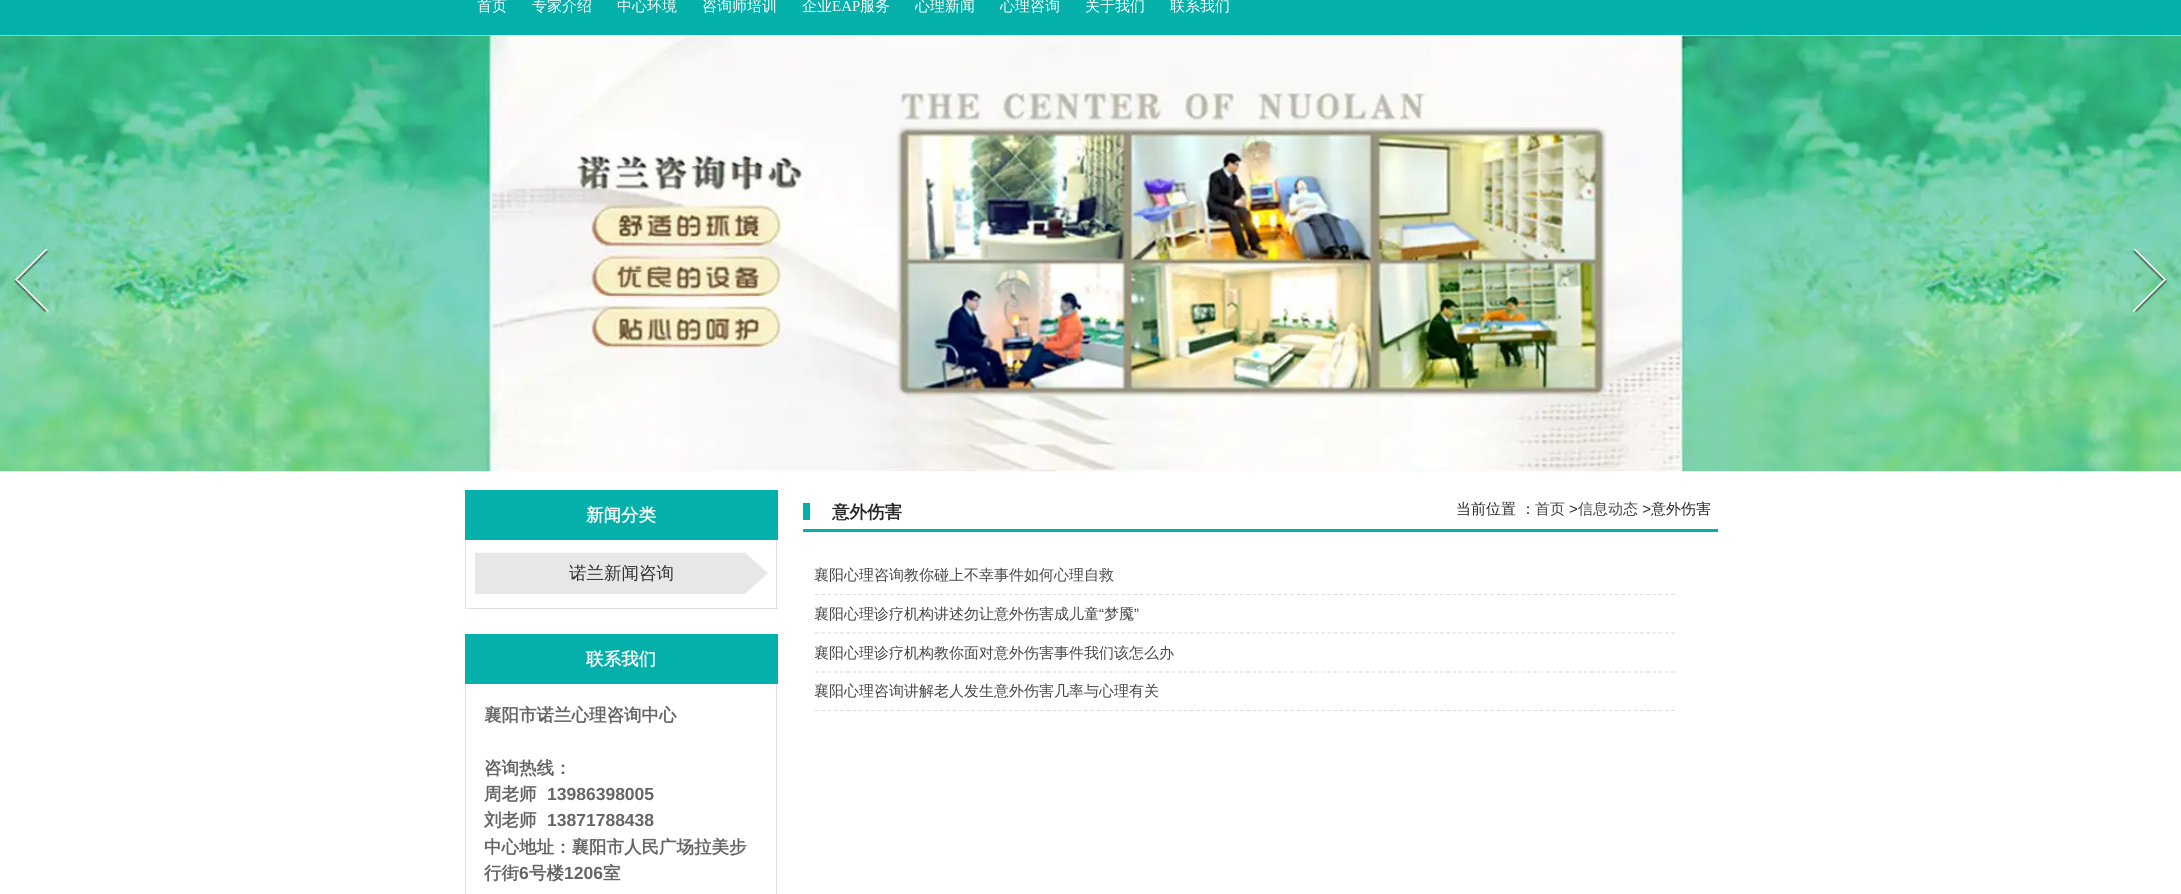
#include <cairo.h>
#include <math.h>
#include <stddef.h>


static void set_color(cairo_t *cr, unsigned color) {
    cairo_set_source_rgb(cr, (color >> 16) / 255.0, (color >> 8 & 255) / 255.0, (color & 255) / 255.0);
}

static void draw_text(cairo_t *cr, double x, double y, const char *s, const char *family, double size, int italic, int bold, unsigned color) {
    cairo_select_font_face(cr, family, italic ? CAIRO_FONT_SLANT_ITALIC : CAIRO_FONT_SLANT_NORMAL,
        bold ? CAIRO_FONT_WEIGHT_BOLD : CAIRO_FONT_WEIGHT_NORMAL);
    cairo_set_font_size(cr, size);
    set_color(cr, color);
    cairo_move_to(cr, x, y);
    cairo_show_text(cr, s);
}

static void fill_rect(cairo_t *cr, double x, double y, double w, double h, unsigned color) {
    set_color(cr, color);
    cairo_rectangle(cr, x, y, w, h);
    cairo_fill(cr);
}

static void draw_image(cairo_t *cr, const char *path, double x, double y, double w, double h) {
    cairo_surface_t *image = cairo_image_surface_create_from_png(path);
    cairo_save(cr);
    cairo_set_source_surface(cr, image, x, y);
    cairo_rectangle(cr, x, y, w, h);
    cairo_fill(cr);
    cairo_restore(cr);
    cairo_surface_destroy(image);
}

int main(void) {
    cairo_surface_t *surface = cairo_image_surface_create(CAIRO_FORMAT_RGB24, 2181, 894);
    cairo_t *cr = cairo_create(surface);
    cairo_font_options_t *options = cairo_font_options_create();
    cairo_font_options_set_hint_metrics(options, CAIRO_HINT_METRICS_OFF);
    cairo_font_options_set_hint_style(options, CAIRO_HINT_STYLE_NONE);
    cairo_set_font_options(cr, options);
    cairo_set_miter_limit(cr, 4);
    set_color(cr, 0xFFFFFF);
    cairo_paint(cr);
    fill_rect(cr, 0, 0, 2181, 35, 0x03B0AA);
    draw_text(cr, 477, 11, "首页", "WenQuanYi Zen Hei Medium", 15, 0, 0, 0xFFFFFF);
    draw_text(cr, 532, 11, "专家介绍", "WenQuanYi Zen Hei Medium", 15, 0, 0, 0xFFFFFF);
    draw_text(cr, 617, 11, "中心环境", "WenQuanYi Zen Hei Medium", 15, 0, 0, 0xFFFFFF);
    draw_text(cr, 702, 11, "咨询师培训", "WenQuanYi Zen Hei Medium", 15, 0, 0, 0xFFFFFF);
    draw_text(cr, 802, 11, "企业", "WenQuanYi Zen Hei Medium", 15, 0, 0, 0xFFFFFF);
    draw_text(cr, 832, 11, "EAP", "Liberation Serif", 15, 0, 0, 0xFFFFFF);
    draw_text(cr, 860, 11, "服务", "WenQuanYi Zen Hei Medium", 15, 0, 0, 0xFFFFFF);
    draw_text(cr, 915, 11, "心理新闻", "WenQuanYi Zen Hei Medium", 15, 0, 0, 0xFFFFFF);
    draw_text(cr, 1000, 11, "心理咨询", "WenQuanYi Zen Hei Medium", 15, 0, 0, 0xFFFFFF);
    draw_text(cr, 1085, 11, "关于我们", "WenQuanYi Zen Hei Medium", 15, 0, 0, 0xFFFFFF);
    draw_text(cr, 1170, 11, "联系我们", "WenQuanYi Zen Hei Medium", 15, 0, 0, 0xFFFFFF);
    draw_image(cr, "assets/img1.png", 0, 35, 2181, 437);
    draw_image(cr, "assets/img2.png", 13, 249, 37, 63);
    draw_image(cr, "assets/img3.png", 2131, 249, 37, 63);
    fill_rect(cr, 465, 490, 313, 50, 0x03B0AA);
    draw_text(cr, 586, 521, "新闻分类", "WenQuanYi Zen Hei", 17.5, 0, 1, 0xF4F4F4);
    fill_rect(cr, 776, 540, 1, 69, 0xE0E0E0);
    fill_rect(cr, 465, 608, 313, 1, 0xE0E0E0);
    fill_rect(cr, 465, 540, 1, 69, 0xE0E0E0);
    draw_image(cr, "assets/img4.png", 475, 552, 293, 42);
    draw_text(cr, 569, 579, "诺兰新闻咨询", "WenQuanYi Zen Hei Medium", 17.5, 0, 0, 0x333333);
    fill_rect(cr, 465, 634, 313, 50, 0x03B0AA);
    draw_text(cr, 586, 665, "联系我们", "WenQuanYi Zen Hei", 17.5, 0, 1, 0xF4F4F4);
    fill_rect(cr, 776, 684, 1, 210, 0xE0E0E0);
    fill_rect(cr, 465, 684, 1, 210, 0xE0E0E0);
    draw_text(cr, 484, 721, "襄阳市诺兰心理咨询中心", "WenQuanYi Zen Hei", 17.5, 0, 1, 0x666666);
    draw_text(cr, 484, 774, "咨询热线：", "WenQuanYi Zen Hei", 17.5, 0, 1, 0x666666);
    draw_text(cr, 484, 800, "周老师", "WenQuanYi Zen Hei", 17.5, 0, 1, 0x666666);
    draw_text(cr, 547, 800, "13986398005", "Liberation Sans", 17.5, 0, 1, 0x666666);
    draw_text(cr, 484, 826, "刘老师", "WenQuanYi Zen Hei", 17.5, 0, 1, 0x666666);
    draw_text(cr, 547, 826, "13871788438", "Liberation Sans", 17.5, 0, 1, 0x666666);
    draw_text(cr, 484, 853, "中心地址：襄阳市人民广场拉美步", "WenQuanYi Zen Hei", 17.5, 0, 1, 0x666666);
    draw_text(cr, 484, 879, "行街", "WenQuanYi Zen Hei", 17.5, 0, 1, 0x666666);
    draw_text(cr, 519, 879, "6", "Liberation Sans", 17.5, 0, 1, 0x666666);
    draw_text(cr, 529, 879, "号楼", "WenQuanYi Zen Hei", 17.5, 0, 1, 0x666666);
    draw_text(cr, 564, 879, "1206", "Liberation Sans", 17.5, 0, 1, 0x666666);
    draw_text(cr, 603, 879, "室", "WenQuanYi Zen Hei", 17.5, 0, 1, 0x666666);
    fill_rect(cr, 803, 529, 915, 3, 0x03B0AA);
    fill_rect(cr, 803, 503, 7, 17, 0x03B0AA);
    draw_text(cr, 832, 518, "意外伤害", "WenQuanYi Zen Hei", 17.5, 0, 1, 0x272727);
    draw_text(cr, 1456, 514, "当前位置 ：", "WenQuanYi Zen Hei Medium", 15, 0, 0, 0x272727);
    draw_text(cr, 1535, 514, "首页", "WenQuanYi Zen Hei Medium", 15, 0, 0, 0x454545);
    draw_text(cr, 1569, 514, ">", "Liberation Sans", 15, 0, 0, 0x272727);
    draw_text(cr, 1578, 514, "信息动态", "WenQuanYi Zen Hei Medium", 15, 0, 0, 0x454545);
    draw_text(cr, 1642, 514, ">", "Liberation Sans", 15, 1, 0, 0x272727);
    draw_text(cr, 1651, 514, "意外伤害", "WenQuanYi Zen Hei Medium", 15, 0, 0, 0x272727);
    cairo_new_path(cr);
    cairo_move_to(cr, 815, 594.5);
    cairo_line_to(cr, 1675, 594.5);
    set_color(cr, 0xE0E0E0);
    cairo_set_line_width(cr, 1.2);
    cairo_set_dash(cr, (double[]){3.75, 2.5}, 2, 0);
    cairo_stroke(cr);
    draw_text(cr, 814, 580, "襄阳心理咨询教你碰上不幸事件如何心理自救", "WenQuanYi Zen Hei Medium", 15, 0, 0, 0x454545);
    cairo_new_path(cr);
    cairo_move_to(cr, 815, 633);
    cairo_line_to(cr, 1675, 633);
    set_color(cr, 0xE0E0E0);
    cairo_stroke(cr);
    draw_text(cr, 814, 619, "襄阳心理诊疗机构讲述勿让意外伤害成儿童", "WenQuanYi Zen Hei Medium", 15, 0, 0, 0x454545);
    draw_text(cr, 1099, 619, "“", "Liberation Sans", 15, 0, 0, 0x454545);
    draw_text(cr, 1104, 619, "梦魇", "WenQuanYi Zen Hei Medium", 15, 0, 0, 0x454545);
    draw_text(cr, 1134, 619, "”", "Liberation Sans", 15, 0, 0, 0x454545);
    cairo_new_path(cr);
    cairo_move_to(cr, 815, 672);
    cairo_line_to(cr, 1675, 672);
    set_color(cr, 0xE0E0E0);
    cairo_stroke(cr);
    draw_text(cr, 814, 658, "襄阳心理诊疗机构教你面对意外伤害事件我们该怎么办", "WenQuanYi Zen Hei Medium", 15, 0, 0, 0x454545);
    cairo_new_path(cr);
    cairo_move_to(cr, 815, 710.5);
    cairo_line_to(cr, 1675, 710.5);
    set_color(cr, 0xE0E0E0);
    cairo_stroke(cr);
    draw_text(cr, 814, 696, "襄阳心理咨询讲解老人发生意外伤害几率与心理有关", "WenQuanYi Zen Hei Medium", 15, 0, 0, 0x454545);
    cairo_surface_write_to_png(surface, "output.png");
    cairo_font_options_destroy(options);
    cairo_destroy(cr);
    cairo_surface_destroy(surface);
    return 0;
}
